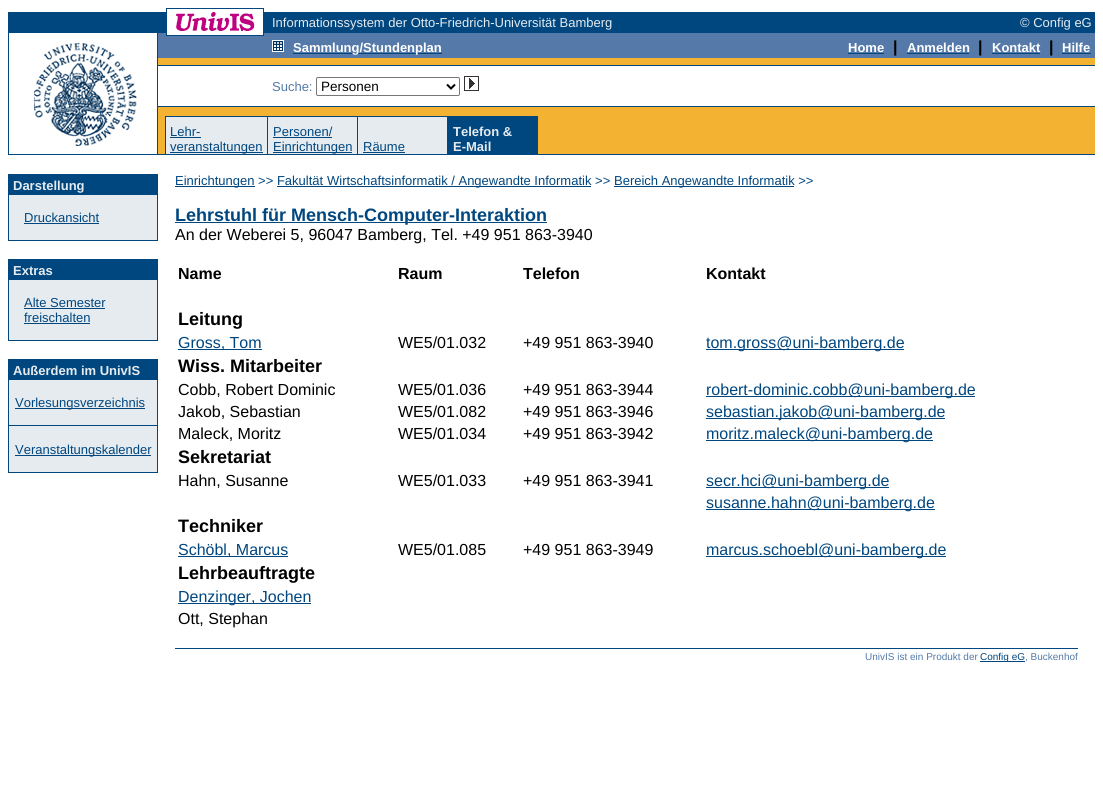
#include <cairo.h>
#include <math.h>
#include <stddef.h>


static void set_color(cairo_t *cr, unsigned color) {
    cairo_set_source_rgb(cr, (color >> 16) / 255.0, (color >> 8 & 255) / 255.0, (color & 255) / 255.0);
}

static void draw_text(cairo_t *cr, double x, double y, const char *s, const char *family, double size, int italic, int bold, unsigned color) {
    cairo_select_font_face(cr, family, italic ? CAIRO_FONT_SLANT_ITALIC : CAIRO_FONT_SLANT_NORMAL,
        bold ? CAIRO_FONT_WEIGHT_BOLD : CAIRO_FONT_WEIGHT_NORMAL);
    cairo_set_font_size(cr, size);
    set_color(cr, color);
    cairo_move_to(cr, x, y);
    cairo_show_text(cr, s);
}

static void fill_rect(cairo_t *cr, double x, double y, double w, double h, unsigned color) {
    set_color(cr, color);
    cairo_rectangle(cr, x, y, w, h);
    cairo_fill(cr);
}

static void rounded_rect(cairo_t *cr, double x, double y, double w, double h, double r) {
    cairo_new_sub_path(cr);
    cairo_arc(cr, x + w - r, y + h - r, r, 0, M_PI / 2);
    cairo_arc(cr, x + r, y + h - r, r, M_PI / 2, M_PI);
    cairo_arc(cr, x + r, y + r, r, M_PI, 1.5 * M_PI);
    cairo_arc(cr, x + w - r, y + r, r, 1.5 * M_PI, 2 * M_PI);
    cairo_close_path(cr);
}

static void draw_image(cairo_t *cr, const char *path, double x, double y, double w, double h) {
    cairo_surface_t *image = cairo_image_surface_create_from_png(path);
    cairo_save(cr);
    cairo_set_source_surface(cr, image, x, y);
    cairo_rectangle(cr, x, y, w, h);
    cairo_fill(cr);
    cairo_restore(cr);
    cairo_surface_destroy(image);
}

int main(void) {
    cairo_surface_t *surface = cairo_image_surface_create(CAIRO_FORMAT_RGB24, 1103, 795);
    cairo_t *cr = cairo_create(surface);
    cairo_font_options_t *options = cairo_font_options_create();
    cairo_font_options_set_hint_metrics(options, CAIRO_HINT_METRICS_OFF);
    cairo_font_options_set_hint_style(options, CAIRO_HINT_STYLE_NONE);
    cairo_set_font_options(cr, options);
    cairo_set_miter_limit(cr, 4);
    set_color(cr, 0xFFFFFF);
    cairo_paint(cr);
    fill_rect(cr, 166, 8, 98, 1, 0x00467F);
    fill_rect(cr, 166, 9, 1, 3, 0x00467F);
    fill_rect(cr, 263, 9, 1, 23, 0x00467F);
    fill_rect(cr, 8, 12, 159, 20, 0x00467F);
    draw_image(cr, "assets/img1.png", 176, 12, 79, 19);
    fill_rect(cr, 264, 12, 831, 20, 0x00467F);
    draw_text(cr, 272, 27, "Informationssystem der Otto-Friedrich-Universität Bamberg", "Liberation Sans", 13, 0, 0, 0xE5EBEF);
    draw_text(cr, 1020, 27, "© Config eG", "Liberation Sans", 13, 0, 0, 0xE5EBEF);
    fill_rect(cr, 8, 32, 1087, 1, 0x00467F);
    fill_rect(cr, 167, 32, 96, 1, 0xFFFFFF);
    fill_rect(cr, 8, 33, 1, 122, 0x00467F);
    draw_image(cr, "assets/img2.png", 34, 43, 103, 103);
    fill_rect(cr, 157, 33, 1, 121, 0x00467F);
    fill_rect(cr, 158, 58, 937, 96, 0xF3B231);
    fill_rect(cr, 158, 33, 937, 2, 0x557AA9);
    fill_rect(cr, 166, 33, 1, 2, 0x00467F);
    fill_rect(cr, 167, 33, 96, 2, 0xFFFFFF);
    fill_rect(cr, 263, 33, 1, 2, 0x00467F);
    fill_rect(cr, 158, 35, 937, 2, 0x557AA9);
    fill_rect(cr, 166, 35, 98, 1, 0x00467F);
    fill_rect(cr, 158, 37, 937, 21, 0x557AA9);
    draw_image(cr, "assets/img3.png", 272, 40, 12, 12);
    fill_rect(cr, 293, 53, 149, 1, 0x00467F);
    draw_text(cr, 293, 52, "Sammlung/Stundenplan", "Liberation Sans", 13, 0, 1, 0xFFFFFF);
    draw_text(cr, 848, 52, "Home", "Liberation Sans", 13, 0, 1, 0xFFFFFF);
    fill_rect(cr, 848, 53, 36, 1, 0x00467F);
    draw_text(cr, 893, 52, "|", "Liberation Sans", 16, 0, 1, 0x000000);
    draw_text(cr, 907, 52, "Anmelden", "Liberation Sans", 13, 0, 1, 0xFFFFFF);
    fill_rect(cr, 907, 53, 62, 1, 0x00467F);
    draw_text(cr, 978, 52, "|", "Liberation Sans", 16, 0, 1, 0x000000);
    draw_text(cr, 992, 52, "Kontakt", "Liberation Sans", 13, 0, 1, 0xFFFFFF);
    fill_rect(cr, 992, 53, 48, 1, 0x00467F);
    draw_text(cr, 1049, 52, "|", "Liberation Sans", 16, 0, 1, 0x000000);
    draw_text(cr, 1062, 52, "Hilfe", "Liberation Sans", 13, 0, 1, 0xFFFFFF);
    fill_rect(cr, 1062, 53, 29, 1, 0x00467F);
    fill_rect(cr, 158, 65, 937, 1, 0x00467F);
    fill_rect(cr, 158, 66, 937, 40, 0xFFFFFF);
    draw_text(cr, 272, 91, "Suche:", "Liberation Sans", 13, 0, 0, 0x557AA9);
    rounded_rect(cr, 316.5, 77.5, 143, 18, 1.5);
    set_color(cr, 0x767676);
    cairo_set_line_width(cr, 1);
    cairo_stroke(cr);
    cairo_new_path(cr);
    cairo_move_to(cr, 447, 84.5);
    cairo_line_to(cr, 451, 88.5);
    cairo_line_to(cr, 455, 84.5);
    set_color(cr, 0x000000);
    cairo_set_line_width(cr, 2);
    cairo_stroke(cr);
    draw_text(cr, 321, 91, "Personen", "Liberation Sans", 13.5, 0, 0, 0x000000);
    draw_image(cr, "assets/img4.png", 464, 76, 15, 15);
    fill_rect(cr, 158, 106, 937, 1, 0x00467F);
    fill_rect(cr, 165, 116, 373, 1, 0x00467F);
    fill_rect(cr, 165, 117, 1, 37, 0x00467F);
    fill_rect(cr, 166, 117, 101, 37, 0xE5EBEF);
    fill_rect(cr, 267, 117, 1, 37, 0x00467F);
    fill_rect(cr, 268, 117, 89, 37, 0xE5EBEF);
    fill_rect(cr, 357, 117, 1, 37, 0x00467F);
    fill_rect(cr, 358, 117, 89, 37, 0xE5EBEF);
    fill_rect(cr, 447, 117, 91, 37, 0x00467F);
    draw_text(cr, 170, 136, "Lehr-", "Liberation Sans", 13, 0, 0, 0x00467F);
    fill_rect(cr, 170, 137, 31, 1, 0x00467F);
    fill_rect(cr, 170, 152, 93, 1, 0x00467F);
    draw_text(cr, 170, 151, "veranstaltungen", "Liberation Sans", 13, 0, 0, 0x00467F);
    draw_text(cr, 273, 136, "Personen/", "Liberation Sans", 13, 0, 0, 0x00467F);
    fill_rect(cr, 273, 137, 59, 1, 0x00467F);
    fill_rect(cr, 273, 152, 79, 1, 0x00467F);
    draw_text(cr, 273, 151, "Einrichtungen", "Liberation Sans", 13, 0, 0, 0x00467F);
    draw_text(cr, 363, 151, "Räume", "Liberation Sans", 13, 0, 0, 0x00467F);
    fill_rect(cr, 363, 152, 42, 1, 0x00467F);
    draw_text(cr, 453, 136, "Telefon &", "Liberation Sans", 13, 0, 1, 0xE5EBEF);
    draw_text(cr, 453, 151, "E-Mail", "Liberation Sans", 13, 0, 1, 0xE5EBEF);
    fill_rect(cr, 9, 154, 1086, 1, 0x00467F);
    fill_rect(cr, 8, 174, 1, 67, 0x00467F);
    fill_rect(cr, 9, 174, 148, 21, 0x00467F);
    fill_rect(cr, 157, 174, 1, 67, 0x00467F);
    draw_text(cr, 13, 190, "Darstellung", "Liberation Sans", 13, 0, 1, 0xE5EBEF);
    fill_rect(cr, 9, 195, 148, 45, 0xE5EBEF);
    draw_text(cr, 24, 222, "Druckansicht", "Liberation Sans", 13, 0, 0, 0x00467F);
    fill_rect(cr, 24, 223, 75, 1, 0x00467F);
    fill_rect(cr, 9, 240, 148, 1, 0x00467F);
    fill_rect(cr, 8, 259, 1, 82, 0x00467F);
    fill_rect(cr, 9, 259, 148, 21, 0x00467F);
    fill_rect(cr, 157, 259, 1, 82, 0x00467F);
    draw_text(cr, 13, 275, "Extras", "Liberation Sans", 13, 0, 1, 0xE5EBEF);
    fill_rect(cr, 9, 280, 148, 60, 0xE5EBEF);
    draw_text(cr, 24, 307, "Alte Semester", "Liberation Sans", 13, 0, 0, 0x00467F);
    fill_rect(cr, 24, 308, 81, 1, 0x00467F);
    draw_text(cr, 24, 322, "freischalten", "Liberation Sans", 13, 0, 0, 0x00467F);
    fill_rect(cr, 24, 323, 66, 1, 0x00467F);
    fill_rect(cr, 9, 340, 148, 1, 0x00467F);
    fill_rect(cr, 8, 359, 1, 114, 0x00467F);
    fill_rect(cr, 9, 359, 148, 21, 0x00467F);
    fill_rect(cr, 157, 359, 1, 114, 0x00467F);
    draw_text(cr, 13, 375, "Außerdem im UnivIS", "Liberation Sans", 13, 0, 1, 0xE5EBEF);
    fill_rect(cr, 9, 380, 148, 45, 0xE5EBEF);
    fill_rect(cr, 15, 408, 130, 1, 0x00467F);
    draw_text(cr, 15, 407, "Vorlesungsverzeichnis", "Liberation Sans", 13, 0, 0, 0x00467F);
    fill_rect(cr, 9, 425, 148, 1, 0x00467F);
    fill_rect(cr, 9, 426, 148, 1, 0xE5EBEF);
    fill_rect(cr, 9, 427, 148, 45, 0xE5EBEF);
    fill_rect(cr, 15, 455, 136, 1, 0x00467F);
    draw_text(cr, 15, 454, "Veranstaltungskalender", "Liberation Sans", 13, 0, 0, 0x00467F);
    fill_rect(cr, 9, 472, 148, 1, 0x00467F);
    fill_rect(cr, 175, 186, 80, 1, 0x00467F);
    draw_text(cr, 175, 185, "Einrichtungen >> Fakultät", "Liberation Sans", 13, 0, 0, 0x00467F);
    fill_rect(cr, 277, 186, 314, 1, 0x00467F);
    draw_text(cr, 327, 185, "Wirtschaftsinformatik / Angewandte Informatik >>", "Liberation Sans", 13, 0, 0, 0x00467F);
    fill_rect(cr, 614, 186, 180, 1, 0x00467F);
    draw_text(cr, 614, 185, "Bereich Angewandte Informatik >>", "Liberation Sans", 13, 0, 0, 0x00467F);
    fill_rect(cr, 175, 222, 372, 1, 0x00467F);
    draw_text(cr, 175, 221, "Lehrstuhl für Mensch-Computer-Interaktion", "Liberation Sans", 18, 0, 1, 0x00467F);
    draw_text(cr, 175, 240, "An der Weberei 5, 96047 Bamberg, Tel. +49 951 863-3940", "Liberation Sans", 16, 0, 0, 0x000000);
    draw_text(cr, 178, 279, "Name", "Liberation Sans", 16, 0, 1, 0x000000);
    draw_text(cr, 398, 279, "Raum", "Liberation Sans", 16, 0, 1, 0x000000);
    draw_text(cr, 523, 279, "Telefon", "Liberation Sans", 16, 0, 1, 0x000000);
    draw_text(cr, 706, 279, "Kontakt", "Liberation Sans", 16, 0, 1, 0x000000);
    draw_text(cr, 178, 325, "Leitung", "Liberation Sans", 18, 0, 1, 0x000000);
    fill_rect(cr, 178, 349, 84, 1, 0x00467F);
    draw_text(cr, 178, 348, "Gross, Tom", "Liberation Sans", 16, 0, 0, 0x00467F);
    draw_text(cr, 398, 348, "WE5/01.032", "Liberation Sans", 16, 0, 0, 0x000000);
    draw_text(cr, 523, 348, "+49 951 863-3940", "Liberation Sans", 16, 0, 0, 0x000000);
    fill_rect(cr, 706, 349, 198, 1, 0x00467F);
    draw_text(cr, 706, 348, "tom.gross@uni-bamberg.de", "Liberation Sans", 16, 0, 0, 0x00467F);
    draw_text(cr, 178, 372, "Wiss. Mitarbeiter", "Liberation Sans", 18, 0, 1, 0x000000);
    draw_text(cr, 178, 395, "Cobb, Robert Dominic", "Liberation Sans", 16, 0, 0, 0x000000);
    draw_text(cr, 398, 395, "WE5/01.036", "Liberation Sans", 16, 0, 0, 0x000000);
    draw_text(cr, 523, 395, "+49 951 863-3944", "Liberation Sans", 16, 0, 0, 0x000000);
    fill_rect(cr, 706, 396, 269, 1, 0x00467F);
    draw_text(cr, 706, 395, "robert-dominic.cobb@uni-bamberg.de", "Liberation Sans", 16, 0, 0, 0x00467F);
    draw_text(cr, 178, 417, "Jakob, Sebastian", "Liberation Sans", 16, 0, 0, 0x000000);
    draw_text(cr, 398, 417, "WE5/01.082", "Liberation Sans", 16, 0, 0, 0x000000);
    draw_text(cr, 523, 417, "+49 951 863-3946", "Liberation Sans", 16, 0, 0, 0x000000);
    fill_rect(cr, 706, 418, 239, 1, 0x00467F);
    draw_text(cr, 706, 417, "sebastian.jakob@uni-bamberg.de", "Liberation Sans", 16, 0, 0, 0x00467F);
    draw_text(cr, 178, 439, "Maleck, Moritz", "Liberation Sans", 16, 0, 0, 0x000000);
    draw_text(cr, 398, 439, "WE5/01.034", "Liberation Sans", 16, 0, 0, 0x000000);
    draw_text(cr, 523, 439, "+49 951 863-3942", "Liberation Sans", 16, 0, 0, 0x000000);
    fill_rect(cr, 706, 440, 227, 1, 0x00467F);
    draw_text(cr, 706, 439, "moritz.maleck@uni-bamberg.de", "Liberation Sans", 16, 0, 0, 0x00467F);
    draw_text(cr, 178, 463, "Sekretariat", "Liberation Sans", 18, 0, 1, 0x000000);
    draw_text(cr, 178, 486, "Hahn, Susanne", "Liberation Sans", 16, 0, 0, 0x000000);
    draw_text(cr, 398, 486, "WE5/01.033", "Liberation Sans", 16, 0, 0, 0x000000);
    draw_text(cr, 523, 486, "+49 951 863-3941", "Liberation Sans", 16, 0, 0, 0x000000);
    fill_rect(cr, 706, 487, 183, 1, 0x00467F);
    draw_text(cr, 706, 486, "secr.hci@uni-bamberg.de", "Liberation Sans", 16, 0, 0, 0x00467F);
    fill_rect(cr, 706, 509, 229, 1, 0x00467F);
    draw_text(cr, 706, 508, "susanne.hahn@uni-bamberg.de", "Liberation Sans", 16, 0, 0, 0x00467F);
    draw_text(cr, 178, 532, "Techniker", "Liberation Sans", 18, 0, 1, 0x000000);
    fill_rect(cr, 178, 556, 110, 1, 0x00467F);
    draw_text(cr, 178, 555, "Schöbl, Marcus", "Liberation Sans", 16, 0, 0, 0x00467F);
    draw_text(cr, 398, 555, "WE5/01.085", "Liberation Sans", 16, 0, 0, 0x000000);
    draw_text(cr, 523, 555, "+49 951 863-3949", "Liberation Sans", 16, 0, 0, 0x000000);
    fill_rect(cr, 706, 556, 240, 1, 0x00467F);
    draw_text(cr, 706, 555, "marcus.schoebl@uni-bamberg.de", "Liberation Sans", 16, 0, 0, 0x00467F);
    draw_text(cr, 178, 579, "Lehrbeauftragte", "Liberation Sans", 18, 0, 1, 0x000000);
    fill_rect(cr, 178, 603, 133, 1, 0x00467F);
    draw_text(cr, 178, 602, "Denzinger, Jochen", "Liberation Sans", 16, 0, 0, 0x00467F);
    draw_text(cr, 178, 624, "Ott, Stephan", "Liberation Sans", 16, 0, 0, 0x000000);
    fill_rect(cr, 175, 648, 903, 1, 0x00467F);
    draw_text(cr, 865, 660, "UnivIS ist ein Produkt der", "Liberation Sans", 10, 0, 0, 0x557AA9);
    fill_rect(cr, 980, 661, 45, 1, 0x00467F);
    draw_text(cr, 980, 660, "Config eG", "Liberation Sans", 10, 0, 0, 0x00467F);
    draw_text(cr, 1025, 660, ", Buckenhof", "Liberation Sans", 10, 0, 0, 0x557AA9);
    cairo_surface_write_to_png(surface, "output.png");
    cairo_font_options_destroy(options);
    cairo_destroy(cr);
    cairo_surface_destroy(surface);
    return 0;
}
